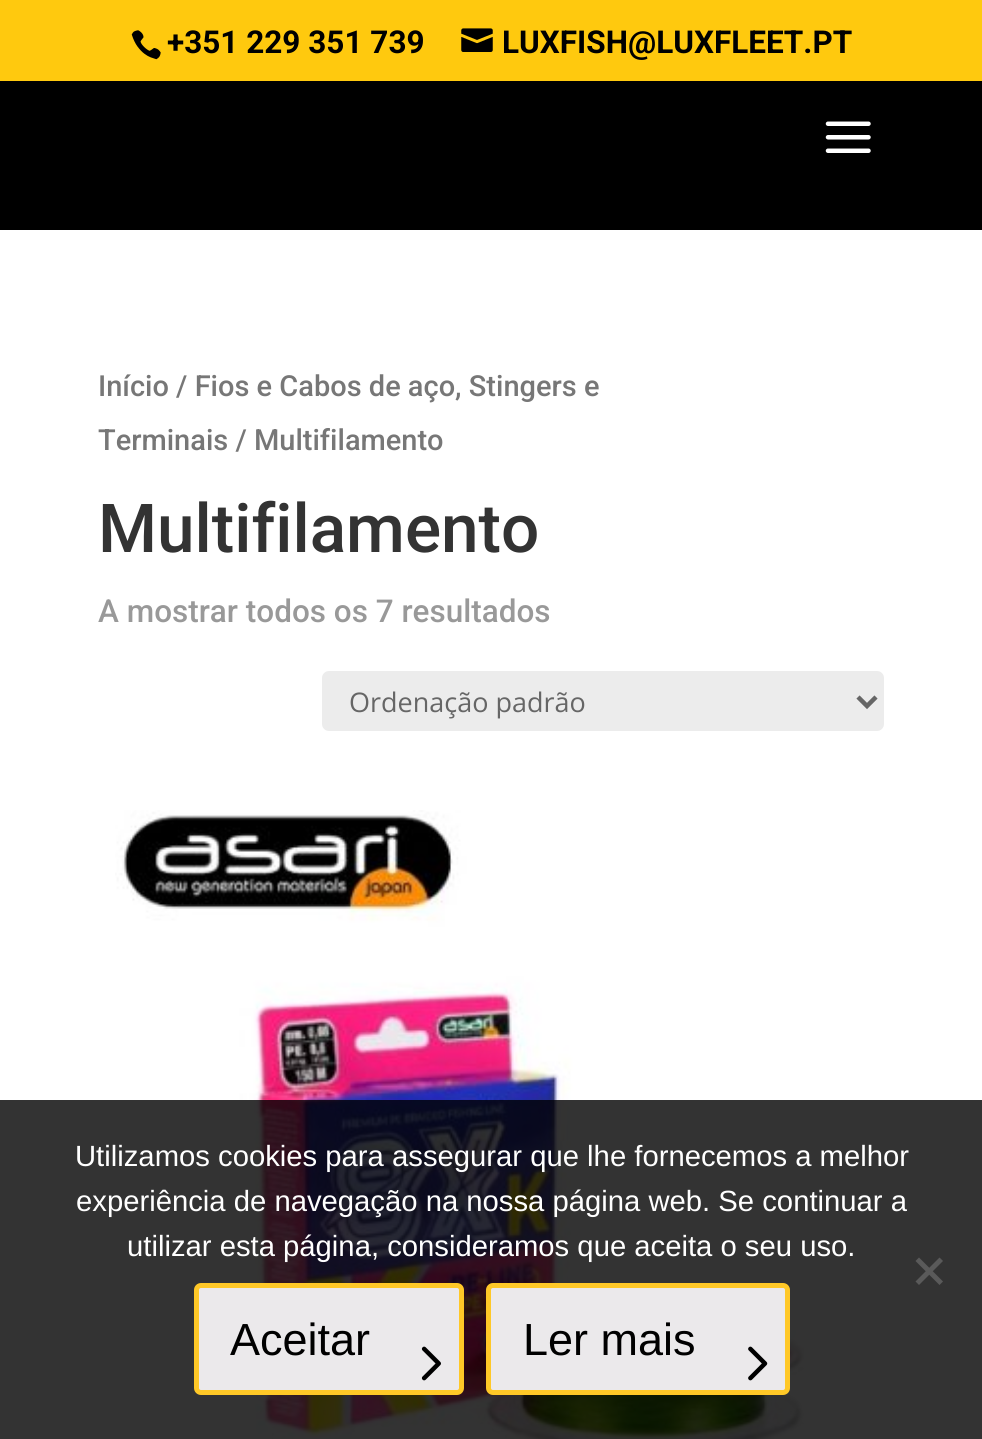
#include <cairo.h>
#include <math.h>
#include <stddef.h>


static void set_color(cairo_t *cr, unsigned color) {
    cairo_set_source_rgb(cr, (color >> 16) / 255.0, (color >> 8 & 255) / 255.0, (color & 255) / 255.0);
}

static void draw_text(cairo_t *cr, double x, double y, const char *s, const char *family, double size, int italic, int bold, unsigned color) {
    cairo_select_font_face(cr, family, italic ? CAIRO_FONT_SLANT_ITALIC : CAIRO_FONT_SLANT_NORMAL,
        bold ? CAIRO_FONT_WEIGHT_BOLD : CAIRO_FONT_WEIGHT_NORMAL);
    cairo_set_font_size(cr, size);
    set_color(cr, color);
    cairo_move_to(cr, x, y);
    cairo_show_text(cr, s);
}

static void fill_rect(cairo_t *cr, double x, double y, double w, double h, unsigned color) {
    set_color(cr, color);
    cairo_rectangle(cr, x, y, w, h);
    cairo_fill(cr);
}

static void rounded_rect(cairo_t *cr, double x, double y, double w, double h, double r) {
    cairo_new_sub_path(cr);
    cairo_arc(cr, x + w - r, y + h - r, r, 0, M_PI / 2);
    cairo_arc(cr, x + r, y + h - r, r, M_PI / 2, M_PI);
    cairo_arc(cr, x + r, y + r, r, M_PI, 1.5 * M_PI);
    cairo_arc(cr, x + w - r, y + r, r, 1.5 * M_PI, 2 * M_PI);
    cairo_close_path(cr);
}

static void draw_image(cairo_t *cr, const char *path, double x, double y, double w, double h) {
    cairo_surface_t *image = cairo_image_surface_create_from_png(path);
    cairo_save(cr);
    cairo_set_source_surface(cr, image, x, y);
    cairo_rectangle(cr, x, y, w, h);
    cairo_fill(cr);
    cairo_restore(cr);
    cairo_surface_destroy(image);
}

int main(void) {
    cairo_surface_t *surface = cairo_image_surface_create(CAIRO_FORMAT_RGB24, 982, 1439);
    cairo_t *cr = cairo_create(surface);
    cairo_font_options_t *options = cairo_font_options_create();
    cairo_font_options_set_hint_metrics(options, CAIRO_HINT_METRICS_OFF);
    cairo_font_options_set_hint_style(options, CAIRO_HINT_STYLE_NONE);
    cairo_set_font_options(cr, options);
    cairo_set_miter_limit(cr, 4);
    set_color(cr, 0xFFC90E);
    cairo_paint(cr);
    draw_image(cr, "assets/img1.png", 131, 30, 30, 30);
    draw_text(cr, 167, 53, "+351 229 351 739", "Roboto", 31.5, 0, 1, 0x000000);
    draw_image(cr, "assets/img2.png", 461, 28, 32, 24);
    draw_text(cr, 502, 53, "LUXFISH@LUXFLEET.PT", "Roboto", 31.5, 0, 1, 0x000000);
    fill_rect(cr, 0, 81, 982, 149, 0x000000);
    draw_image(cr, "assets/img3.png", 825, 121, 46, 32);
    fill_rect(cr, 0, 230, 982, 1209, 0xFFFFFF);
    draw_text(cr, 98, 396, "Início / Fios e Cabos de aço, Stingers e", "Roboto Medium", 29, 0, 0, 0x777777);
    draw_text(cr, 98, 450, "Terminais / Multifilamento", "Roboto Medium", 29, 0, 0, 0x777777);
    draw_text(cr, 98, 552, "Multifilamento", "Roboto Medium", 67.5, 0, 0, 0x333333);
    draw_text(cr, 98, 622, "A mostrar todos os 7 resultados", "Roboto Medium", 31.5, 0, 0, 0x999999);
    set_color(cr, 0xECECEC);
    rounded_rect(cr, 322, 671, 562, 60, 7);
    cairo_fill(cr);
    cairo_new_path(cr);
    cairo_move_to(cr, 858, 697);
    cairo_line_to(cr, 867, 706);
    cairo_line_to(cr, 876, 697);
    set_color(cr, 0x666666);
    cairo_set_line_width(cr, 4.5);
    cairo_stroke(cr);
    draw_text(cr, 349, 712, "Ordenação padrão", "Open Sans", 27, 0, 0, 0x666666);
    draw_image(cr, "assets/img4.png", 115, 810, 689, 629);
    cairo_set_source_rgba(cr, 0, 0, 0, 0.8);
    cairo_rectangle(cr, 0, 1100, 982, 339);
    cairo_fill(cr);
    draw_text(cr, 75, 1166, "Utilizamos cookies para assegurar que lhe fornecemos a melhor", "Liberation Sans", 29.25, 0, 0, 0xFFFFFF);
    draw_text(cr, 76, 1211, "experiência de navegação na nossa página web. Se continuar a", "Liberation Sans", 29.25, 0, 0, 0xFFFFFF);
    draw_text(cr, 127, 1256, "utilizar esta página, consideramos que aceita o seu uso.", "Liberation Sans", 29.25, 0, 0, 0xFFFFFF);
    set_color(cr, 0x5A5A5A);
    cairo_new_path(cr);
    cairo_move_to(cr, 939.5, 1257.5);
    cairo_line_to(cr, 943, 1261);
    cairo_line_to(cr, 919, 1285);
    cairo_line_to(cr, 915.5, 1281.5);
    cairo_close_path(cr);
    cairo_fill(cr);
    cairo_new_path(cr);
    cairo_move_to(cr, 915.5, 1261);
    cairo_line_to(cr, 919, 1257.5);
    cairo_line_to(cr, 943, 1281.5);
    cairo_line_to(cr, 939.5, 1285);
    cairo_close_path(cr);
    cairo_fill(cr);
    set_color(cr, 0xEBE9EB);
    rounded_rect(cr, 196.5, 1285.5, 265, 107, 4.5);
    cairo_fill_preserve(cr);
    set_color(cr, 0xFFC827);
    cairo_set_line_width(cr, 5);
    cairo_stroke(cr);
    draw_text(cr, 230, 1355, "Aceitar", "Liberation Sans", 45, 0, 0, 0x000000);
    draw_image(cr, "assets/img5.png", 421, 1346, 20, 35);
    set_color(cr, 0xEBE9EB);
    rounded_rect(cr, 488.5, 1285.5, 299, 107, 4.5);
    cairo_fill_preserve(cr);
    set_color(cr, 0xFFC827);
    cairo_stroke(cr);
    draw_text(cr, 523, 1355, "Ler mais", "Liberation Sans", 45, 0, 0, 0x000000);
    draw_image(cr, "assets/img6.png", 748, 1346, 20, 35);
    cairo_surface_write_to_png(surface, "output.png");
    cairo_font_options_destroy(options);
    cairo_destroy(cr);
    cairo_surface_destroy(surface);
    return 0;
}
